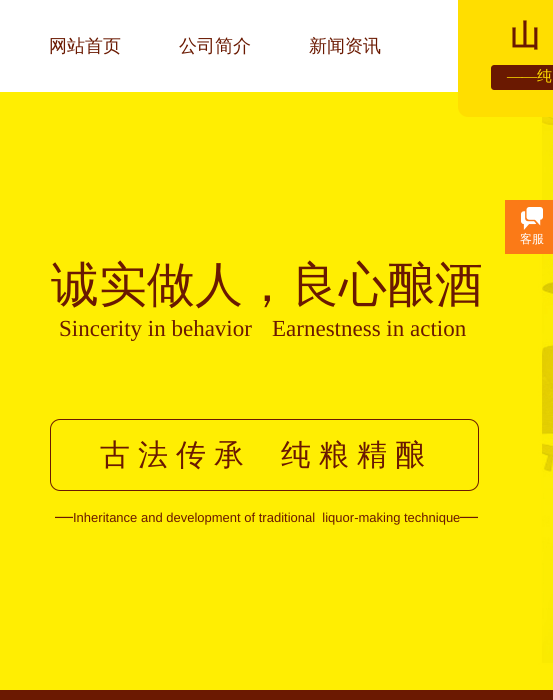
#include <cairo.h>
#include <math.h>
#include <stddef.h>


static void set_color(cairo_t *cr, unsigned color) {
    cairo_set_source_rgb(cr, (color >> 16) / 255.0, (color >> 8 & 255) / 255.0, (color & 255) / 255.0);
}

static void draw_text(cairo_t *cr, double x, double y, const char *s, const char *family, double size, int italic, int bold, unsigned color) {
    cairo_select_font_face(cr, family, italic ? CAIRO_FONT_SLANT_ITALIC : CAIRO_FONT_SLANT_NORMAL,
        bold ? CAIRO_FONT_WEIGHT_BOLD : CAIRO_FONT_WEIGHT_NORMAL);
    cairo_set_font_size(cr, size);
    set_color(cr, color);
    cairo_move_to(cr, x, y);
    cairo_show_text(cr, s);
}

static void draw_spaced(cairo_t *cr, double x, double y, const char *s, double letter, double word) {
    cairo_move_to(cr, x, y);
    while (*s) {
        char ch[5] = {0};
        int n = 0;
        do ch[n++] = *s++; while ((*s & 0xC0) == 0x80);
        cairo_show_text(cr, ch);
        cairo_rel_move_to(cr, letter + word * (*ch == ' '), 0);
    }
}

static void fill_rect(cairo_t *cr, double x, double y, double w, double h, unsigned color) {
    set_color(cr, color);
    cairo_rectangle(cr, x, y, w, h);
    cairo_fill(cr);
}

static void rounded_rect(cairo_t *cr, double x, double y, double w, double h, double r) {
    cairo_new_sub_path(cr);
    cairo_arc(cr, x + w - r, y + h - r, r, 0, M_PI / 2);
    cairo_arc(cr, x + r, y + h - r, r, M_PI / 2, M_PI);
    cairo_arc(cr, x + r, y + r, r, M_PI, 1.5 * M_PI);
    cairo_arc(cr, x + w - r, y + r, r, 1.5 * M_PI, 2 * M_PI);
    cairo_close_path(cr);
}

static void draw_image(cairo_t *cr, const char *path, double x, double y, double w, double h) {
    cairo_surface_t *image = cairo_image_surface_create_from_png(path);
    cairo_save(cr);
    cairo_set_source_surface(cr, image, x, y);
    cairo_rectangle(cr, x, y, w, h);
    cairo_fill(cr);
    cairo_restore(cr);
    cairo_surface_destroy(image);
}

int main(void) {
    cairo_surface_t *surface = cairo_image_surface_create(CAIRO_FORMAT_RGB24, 553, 700);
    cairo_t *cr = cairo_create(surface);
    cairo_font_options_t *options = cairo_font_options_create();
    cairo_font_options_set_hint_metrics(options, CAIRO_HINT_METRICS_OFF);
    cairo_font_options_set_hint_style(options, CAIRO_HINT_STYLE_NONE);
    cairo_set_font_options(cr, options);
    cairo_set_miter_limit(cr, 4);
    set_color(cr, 0xFFFFFF);
    cairo_paint(cr);
    draw_image(cr, "assets/img1.png", 0, 92, 553, 598);
    set_color(cr, 0xFFDE00);
    cairo_new_path(cr);
    cairo_move_to(cr, 468, 0);
    cairo_line_to(cr, 553, 0);
    cairo_line_to(cr, 553, 117);
    cairo_line_to(cr, 468, 117);
    cairo_curve_to(cr, 462.5, 117, 458, 112.5, 458, 107);
    cairo_line_to(cr, 458, 10);
    cairo_curve_to(cr, 458, 4.5, 462.5, 0, 468, 0);
    cairo_close_path(cr);
    cairo_fill(cr);
    fill_rect(cr, 458, 0, 10, 10, 0xFFDE00);
    draw_text(cr, 49, 52, "网站首页", "WenQuanYi Zen Hei Medium", 18, 0, 0, 0x6A1901);
    draw_text(cr, 179, 52, "公司简介", "WenQuanYi Zen Hei Medium", 18, 0, 0, 0x6A1901);
    draw_text(cr, 309, 52, "新闻资讯", "WenQuanYi Zen Hei Medium", 18, 0, 0, 0x6A1901);
    draw_text(cr, 510, 46, "山", "WenQuanYi Zen Hei", 30, 0, 1, 0x6A1901);
    cairo_new_path(cr);
    cairo_move_to(cr, 494, 65);
    cairo_line_to(cr, 553, 65);
    cairo_line_to(cr, 553, 90);
    cairo_line_to(cr, 494, 90);
    cairo_curve_to(cr, 492.5, 90, 491, 88.5, 491, 87);
    cairo_line_to(cr, 491, 68);
    cairo_curve_to(cr, 491, 66.5, 492.5, 65, 494, 65);
    cairo_close_path(cr);
    cairo_fill(cr);
    draw_text(cr, 507, 81, "——", "Liberation Serif", 15, 0, 0, 0xFFDE00);
    draw_text(cr, 537, 81, "纯", "WenQuanYi Zen Hei Medium", 15, 0, 0, 0xFFDE00);
    draw_text(cr, 51, 301, "诚实做人，良心酿酒", "WenQuanYi Zen Hei Medium", 48, 0, 0, 0x6A1901);
    draw_text(cr, 59, 336, "Sincerity in behavior", "Liberation Serif", 23, 0, 0, 0x6A1901);
    draw_text(cr, 272, 336, "Earnestness in action", "Liberation Serif", 23, 0, 0, 0x6A1901);
    rounded_rect(cr, 50.5, 419.5, 428, 71, 9.5);
    cairo_set_line_width(cr, 1);
    cairo_stroke(cr);
    cairo_select_font_face(cr, "WenQuanYi Zen Hei Medium", CAIRO_FONT_SLANT_NORMAL, CAIRO_FONT_WEIGHT_NORMAL);
    cairo_set_font_size(cr, 30);
    draw_spaced(cr, 100, 465, "古 法 传 承", 0, -1);
    draw_spaced(cr, 281, 465, "纯 粮 精 酿", 0, -1);
    draw_text(cr, 55, 522, "—", "Liberation Sans", 18, 0, 0, 0x6A1901);
    draw_text(cr, 73, 522, "Inheritance and development of traditional  liquor-making technique", "Liberation Sans", 13, 0, 0, 0x6A1901);
    draw_text(cr, 460, 522, "—", "Liberation Sans", 18, 0, 0, 0x6A1901);
    fill_rect(cr, 0, 690, 553, 10, 0x6B1901);
    fill_rect(cr, 505, 200, 48, 54, 0xFB7A17);
    draw_image(cr, "assets/img2.png", 521, 207, 22, 23);
    draw_text(cr, 520, 243, "客服", "WenQuanYi Zen Hei Medium", 12, 0, 0, 0xFFFFFF);
    cairo_surface_write_to_png(surface, "output.png");
    cairo_font_options_destroy(options);
    cairo_destroy(cr);
    cairo_surface_destroy(surface);
    return 0;
}
